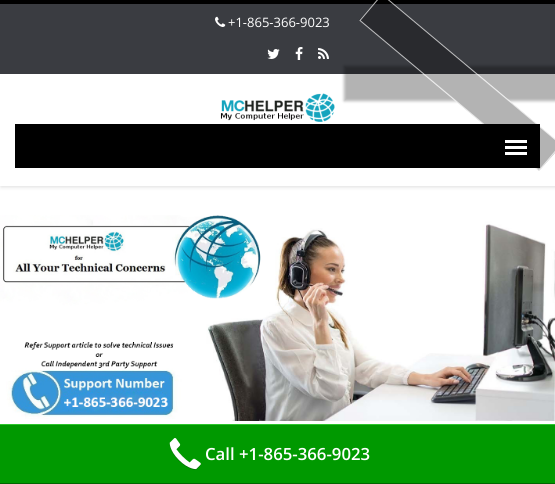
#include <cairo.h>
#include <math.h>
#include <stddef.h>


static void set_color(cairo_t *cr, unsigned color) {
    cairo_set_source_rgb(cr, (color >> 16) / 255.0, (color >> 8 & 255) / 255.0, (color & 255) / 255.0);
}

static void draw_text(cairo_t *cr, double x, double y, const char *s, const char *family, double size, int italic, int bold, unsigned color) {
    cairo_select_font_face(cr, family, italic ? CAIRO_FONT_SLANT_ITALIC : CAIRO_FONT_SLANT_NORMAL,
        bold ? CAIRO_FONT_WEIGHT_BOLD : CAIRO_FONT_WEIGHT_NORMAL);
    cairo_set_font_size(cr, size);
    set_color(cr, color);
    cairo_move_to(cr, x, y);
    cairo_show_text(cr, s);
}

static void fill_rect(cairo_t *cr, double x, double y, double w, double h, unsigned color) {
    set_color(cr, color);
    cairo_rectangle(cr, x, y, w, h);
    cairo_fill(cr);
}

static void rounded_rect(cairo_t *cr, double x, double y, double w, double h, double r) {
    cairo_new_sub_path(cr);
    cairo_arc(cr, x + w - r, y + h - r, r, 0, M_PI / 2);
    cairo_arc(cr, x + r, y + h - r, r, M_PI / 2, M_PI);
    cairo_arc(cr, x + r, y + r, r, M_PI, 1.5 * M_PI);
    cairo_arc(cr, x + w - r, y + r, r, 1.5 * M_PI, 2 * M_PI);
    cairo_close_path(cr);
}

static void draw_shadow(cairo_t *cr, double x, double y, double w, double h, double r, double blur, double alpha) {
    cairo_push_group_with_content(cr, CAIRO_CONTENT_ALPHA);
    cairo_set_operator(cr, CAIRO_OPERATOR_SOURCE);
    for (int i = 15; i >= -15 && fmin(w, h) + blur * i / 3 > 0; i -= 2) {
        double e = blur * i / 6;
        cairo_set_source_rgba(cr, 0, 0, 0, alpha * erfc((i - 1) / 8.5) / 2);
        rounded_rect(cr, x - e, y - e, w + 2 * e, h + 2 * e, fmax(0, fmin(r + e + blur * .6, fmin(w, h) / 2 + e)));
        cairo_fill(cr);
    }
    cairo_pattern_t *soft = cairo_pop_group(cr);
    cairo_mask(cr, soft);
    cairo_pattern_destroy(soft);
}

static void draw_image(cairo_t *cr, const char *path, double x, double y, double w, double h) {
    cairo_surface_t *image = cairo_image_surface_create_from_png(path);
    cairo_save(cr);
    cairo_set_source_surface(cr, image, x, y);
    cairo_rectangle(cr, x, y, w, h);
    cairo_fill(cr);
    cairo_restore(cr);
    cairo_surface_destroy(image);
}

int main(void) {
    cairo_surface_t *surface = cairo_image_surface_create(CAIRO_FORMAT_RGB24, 555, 484);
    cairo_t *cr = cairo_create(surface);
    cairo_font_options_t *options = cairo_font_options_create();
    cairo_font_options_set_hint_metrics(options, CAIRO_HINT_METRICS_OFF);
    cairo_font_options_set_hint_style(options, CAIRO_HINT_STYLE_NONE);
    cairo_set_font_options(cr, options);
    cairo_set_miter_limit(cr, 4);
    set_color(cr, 0xFFFFFF);
    cairo_paint(cr);
    cairo_save(cr);
    cairo_rectangle(cr, 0, 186, 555, 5);
    cairo_clip(cr);
    set_color(cr, 0xDDDDDD);
    draw_shadow(cr, 1, 1, 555, 186, 0, 2, 1);
    cairo_restore(cr);
    fill_rect(cr, 0, 4, 555, 70, 0x3A3C41);
    fill_rect(cr, 0, 0, 555, 4, 0x000000);
    draw_image(cr, "assets/img1.png", 215, 16, 11, 11);
    draw_text(cr, 228, 27, "+1-865-366-9023", "Open Sans", 13, 0, 0, 0xFFFFFF);
    draw_image(cr, "assets/img2.png", 267, 49, 13, 10);
    draw_image(cr, "assets/img3.png", 295, 47, 8, 13);
    draw_image(cr, "assets/img4.png", 318, 48, 11, 11);
    draw_image(cr, "assets/img5.png", 220, 93, 115, 29);
    cairo_save(cr);
    cairo_set_fill_rule(cr, CAIRO_FILL_RULE_EVEN_ODD);
    cairo_new_path(cr);
    cairo_move_to(cr, 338, 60);
    cairo_line_to(cr, 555, 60);
    cairo_line_to(cr, 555, 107);
    cairo_line_to(cr, 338, 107);
    cairo_close_path(cr);
    cairo_move_to(cr, 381.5, -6.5);
    cairo_line_to(cr, 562, 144.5);
    cairo_line_to(cr, 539.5, 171.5);
    cairo_line_to(cr, 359, 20.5);
    cairo_close_path(cr);
    cairo_clip(cr);
    set_color(cr, 0x000000);
    draw_shadow(cr, 344, 66, 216, 35, 0, 1.5, 0.3);
    cairo_restore(cr);
    cairo_set_source_rgba(cr, 0, 0, 0, 0.3);
    cairo_new_path(cr);
    cairo_move_to(cr, 382, -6);
    cairo_line_to(cr, 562, 145);
    cairo_line_to(cr, 539, 171);
    cairo_line_to(cr, 359, 20);
    cairo_close_path(cr);
    cairo_fill(cr);
    cairo_new_path(cr);
    cairo_move_to(cr, 382, -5.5);
    cairo_line_to(cr, 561, 144.5);
    cairo_line_to(cr, 539, 170.5);
    cairo_line_to(cr, 360, 20.5);
    cairo_close_path(cr);
    cairo_set_source_rgba(cr, 1, 1, 1, 0.7);
    cairo_set_line_width(cr, 1);
    cairo_stroke(cr);
    fill_rect(cr, 15, 124, 525, 44, 0x000000);
    fill_rect(cr, 505, 140, 22, 3, 0xFFFFFF);
    fill_rect(cr, 505, 146, 22, 3, 0xFFFFFF);
    fill_rect(cr, 505, 152, 22, 3, 0xFFFFFF);
    draw_image(cr, "assets/img6.png", 0, 215, 555, 206);
    fill_rect(cr, 0, 425, 555, 58, 0x009900);
    fill_rect(cr, 0, 424, 555, 1, 0x2DC62D);
    fill_rect(cr, 0, 483, 555, 1, 0x006700);
    draw_image(cr, "assets/img7.png", 169, 438, 32, 32);
    draw_text(cr, 205, 460, "Call +1-865-366-9023", "Open Sans SemiBold", 16.75, 0, 0, 0xFFFFFF);
    cairo_surface_write_to_png(surface, "output.png");
    cairo_font_options_destroy(options);
    cairo_destroy(cr);
    cairo_surface_destroy(surface);
    return 0;
}
